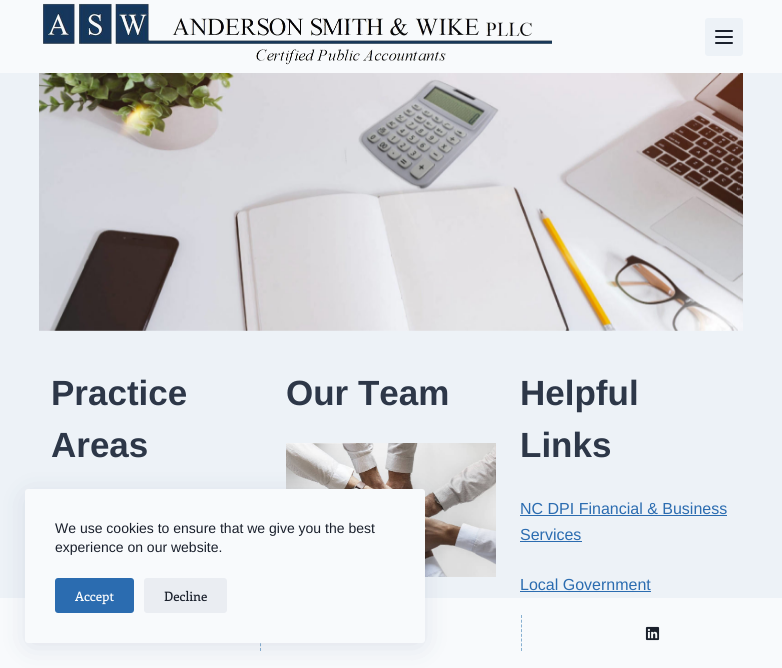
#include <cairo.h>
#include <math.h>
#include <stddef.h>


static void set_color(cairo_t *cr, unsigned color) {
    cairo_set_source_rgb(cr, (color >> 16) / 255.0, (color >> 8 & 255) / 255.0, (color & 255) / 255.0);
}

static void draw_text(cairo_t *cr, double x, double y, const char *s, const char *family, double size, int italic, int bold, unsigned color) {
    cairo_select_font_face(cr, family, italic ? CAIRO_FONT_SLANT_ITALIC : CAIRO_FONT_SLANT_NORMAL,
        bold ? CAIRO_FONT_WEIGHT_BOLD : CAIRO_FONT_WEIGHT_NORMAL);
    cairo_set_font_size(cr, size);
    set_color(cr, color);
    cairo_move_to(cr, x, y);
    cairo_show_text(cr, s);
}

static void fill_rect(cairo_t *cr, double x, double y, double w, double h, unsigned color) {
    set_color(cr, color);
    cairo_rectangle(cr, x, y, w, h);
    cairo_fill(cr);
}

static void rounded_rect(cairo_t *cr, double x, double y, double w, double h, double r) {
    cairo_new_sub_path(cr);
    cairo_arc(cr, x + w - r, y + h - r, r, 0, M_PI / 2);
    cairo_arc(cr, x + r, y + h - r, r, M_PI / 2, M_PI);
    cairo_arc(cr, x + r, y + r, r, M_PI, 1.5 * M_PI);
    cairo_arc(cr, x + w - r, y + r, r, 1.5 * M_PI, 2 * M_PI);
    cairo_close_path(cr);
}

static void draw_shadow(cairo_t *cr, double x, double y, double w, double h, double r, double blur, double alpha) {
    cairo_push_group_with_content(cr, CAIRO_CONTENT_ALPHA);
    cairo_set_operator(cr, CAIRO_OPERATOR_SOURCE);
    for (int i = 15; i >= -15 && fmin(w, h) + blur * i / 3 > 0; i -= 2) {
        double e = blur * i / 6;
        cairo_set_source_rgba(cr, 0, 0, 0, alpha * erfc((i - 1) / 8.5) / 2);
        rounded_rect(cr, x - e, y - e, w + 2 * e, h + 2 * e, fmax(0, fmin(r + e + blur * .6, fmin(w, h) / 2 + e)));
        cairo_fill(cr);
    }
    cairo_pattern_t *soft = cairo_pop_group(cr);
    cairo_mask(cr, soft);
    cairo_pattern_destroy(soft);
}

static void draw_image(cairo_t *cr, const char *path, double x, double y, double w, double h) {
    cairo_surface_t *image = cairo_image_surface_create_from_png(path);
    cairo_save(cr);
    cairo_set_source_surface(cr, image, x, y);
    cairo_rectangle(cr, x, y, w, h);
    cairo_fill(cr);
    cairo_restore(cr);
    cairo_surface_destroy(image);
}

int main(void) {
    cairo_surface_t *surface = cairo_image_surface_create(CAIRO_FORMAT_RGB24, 782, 668);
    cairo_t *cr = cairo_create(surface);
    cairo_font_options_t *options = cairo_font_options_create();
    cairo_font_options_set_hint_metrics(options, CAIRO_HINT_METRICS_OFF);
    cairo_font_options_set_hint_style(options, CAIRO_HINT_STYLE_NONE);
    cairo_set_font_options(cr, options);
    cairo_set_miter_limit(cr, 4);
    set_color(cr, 0xEDF2F7);
    cairo_paint(cr);
    fill_rect(cr, 0, 0, 782, 73, 0xF8FAFC);
    draw_image(cr, "assets/img1.png", 43, 3, 509, 62);
    set_color(cr, 0xEDF2F7);
    rounded_rect(cr, 705, 18, 38, 38, 3);
    cairo_fill(cr);
    set_color(cr, 0x1A202C);
    rounded_rect(cr, 715, 30, 18, 2, 1);
    cairo_fill(cr);
    rounded_rect(cr, 715, 36, 18, 2, 1);
    cairo_fill(cr);
    rounded_rect(cr, 715, 42, 18, 2, 1);
    cairo_fill(cr);
    draw_image(cr, "assets/img2.png", 39, 73, 704, 258);
    draw_text(cr, 51, 405, "Practice", "Liberation Sans", 35, 0, 1, 0x2D3748);
    draw_text(cr, 51, 457, "Areas", "Liberation Sans", 35, 0, 1, 0x2D3748);
    draw_text(cr, 286, 405, "Our Team", "Liberation Sans", 35, 0, 1, 0x2D3748);
    draw_image(cr, "assets/img3.png", 286, 443, 210, 134);
    draw_text(cr, 520, 405, "Helpful", "Liberation Sans", 35, 0, 1, 0x2D3748);
    draw_text(cr, 520, 457, "Links", "Liberation Sans", 35, 0, 1, 0x2D3748);
    draw_text(cr, 520, 514, "NC DPI Financial & Business", "Liberation Sans", 16, 0, 0, 0x2B6CB0);
    fill_rect(cr, 520, 515, 207, 1, 0x2B6CB0);
    draw_text(cr, 520, 540, "Services", "Liberation Sans", 16, 0, 0, 0x2B6CB0);
    fill_rect(cr, 520, 541, 62, 1, 0x2B6CB0);
    draw_text(cr, 520, 590, "Local Government", "Liberation Sans", 16, 0, 0, 0x2B6CB0);
    fill_rect(cr, 520, 591, 131, 1, 0x2B6CB0);
    fill_rect(cr, 0, 598, 782, 70, 0xF8FAFC);
    cairo_new_path(cr);
    cairo_move_to(cr, 260.5, 615);
    cairo_line_to(cr, 260.5, 651);
    set_color(cr, 0x87B0D1);
    cairo_set_line_width(cr, 1);
    cairo_set_dash(cr, (double[]){3, 1.71}, 2, 0);
    cairo_stroke(cr);
    set_color(cr, 0x223865);
    draw_shadow(cr, 30, 499, 390, 144, 0, 15, 0.15);
    set_color(cr, 0xF8FAFC);
    rounded_rect(cr, 25, 489, 400, 154, 3);
    cairo_fill(cr);
    draw_text(cr, 55, 533, "We use cookies to ensure that we give you the best", "Liberation Sans", 14, 0, 0, 0x1A202C);
    draw_text(cr, 55, 552, "experience on our website.", "Liberation Sans", 14, 0, 0, 0x1A202C);
    set_color(cr, 0x2B6CB0);
    rounded_rect(cr, 55, 578, 79, 35, 3);
    cairo_fill(cr);
    draw_text(cr, 75, 601, "Accept", "Enriqueta Medium", 13, 0, 0, 0xFFFFFF);
    set_color(cr, 0xEAEDF2);
    rounded_rect(cr, 144, 578, 83, 35, 3);
    cairo_fill(cr);
    draw_text(cr, 164, 601, "Decline", "Enriqueta Medium", 13, 0, 0, 0x1A202C);
    cairo_new_path(cr);
    cairo_move_to(cr, 521.5, 615);
    cairo_line_to(cr, 521.5, 651);
    set_color(cr, 0x87B0D1);
    cairo_stroke(cr);
    draw_image(cr, "assets/img4.png", 645, 626, 15, 15);
    cairo_surface_write_to_png(surface, "output.png");
    cairo_font_options_destroy(options);
    cairo_destroy(cr);
    cairo_surface_destroy(surface);
    return 0;
}
